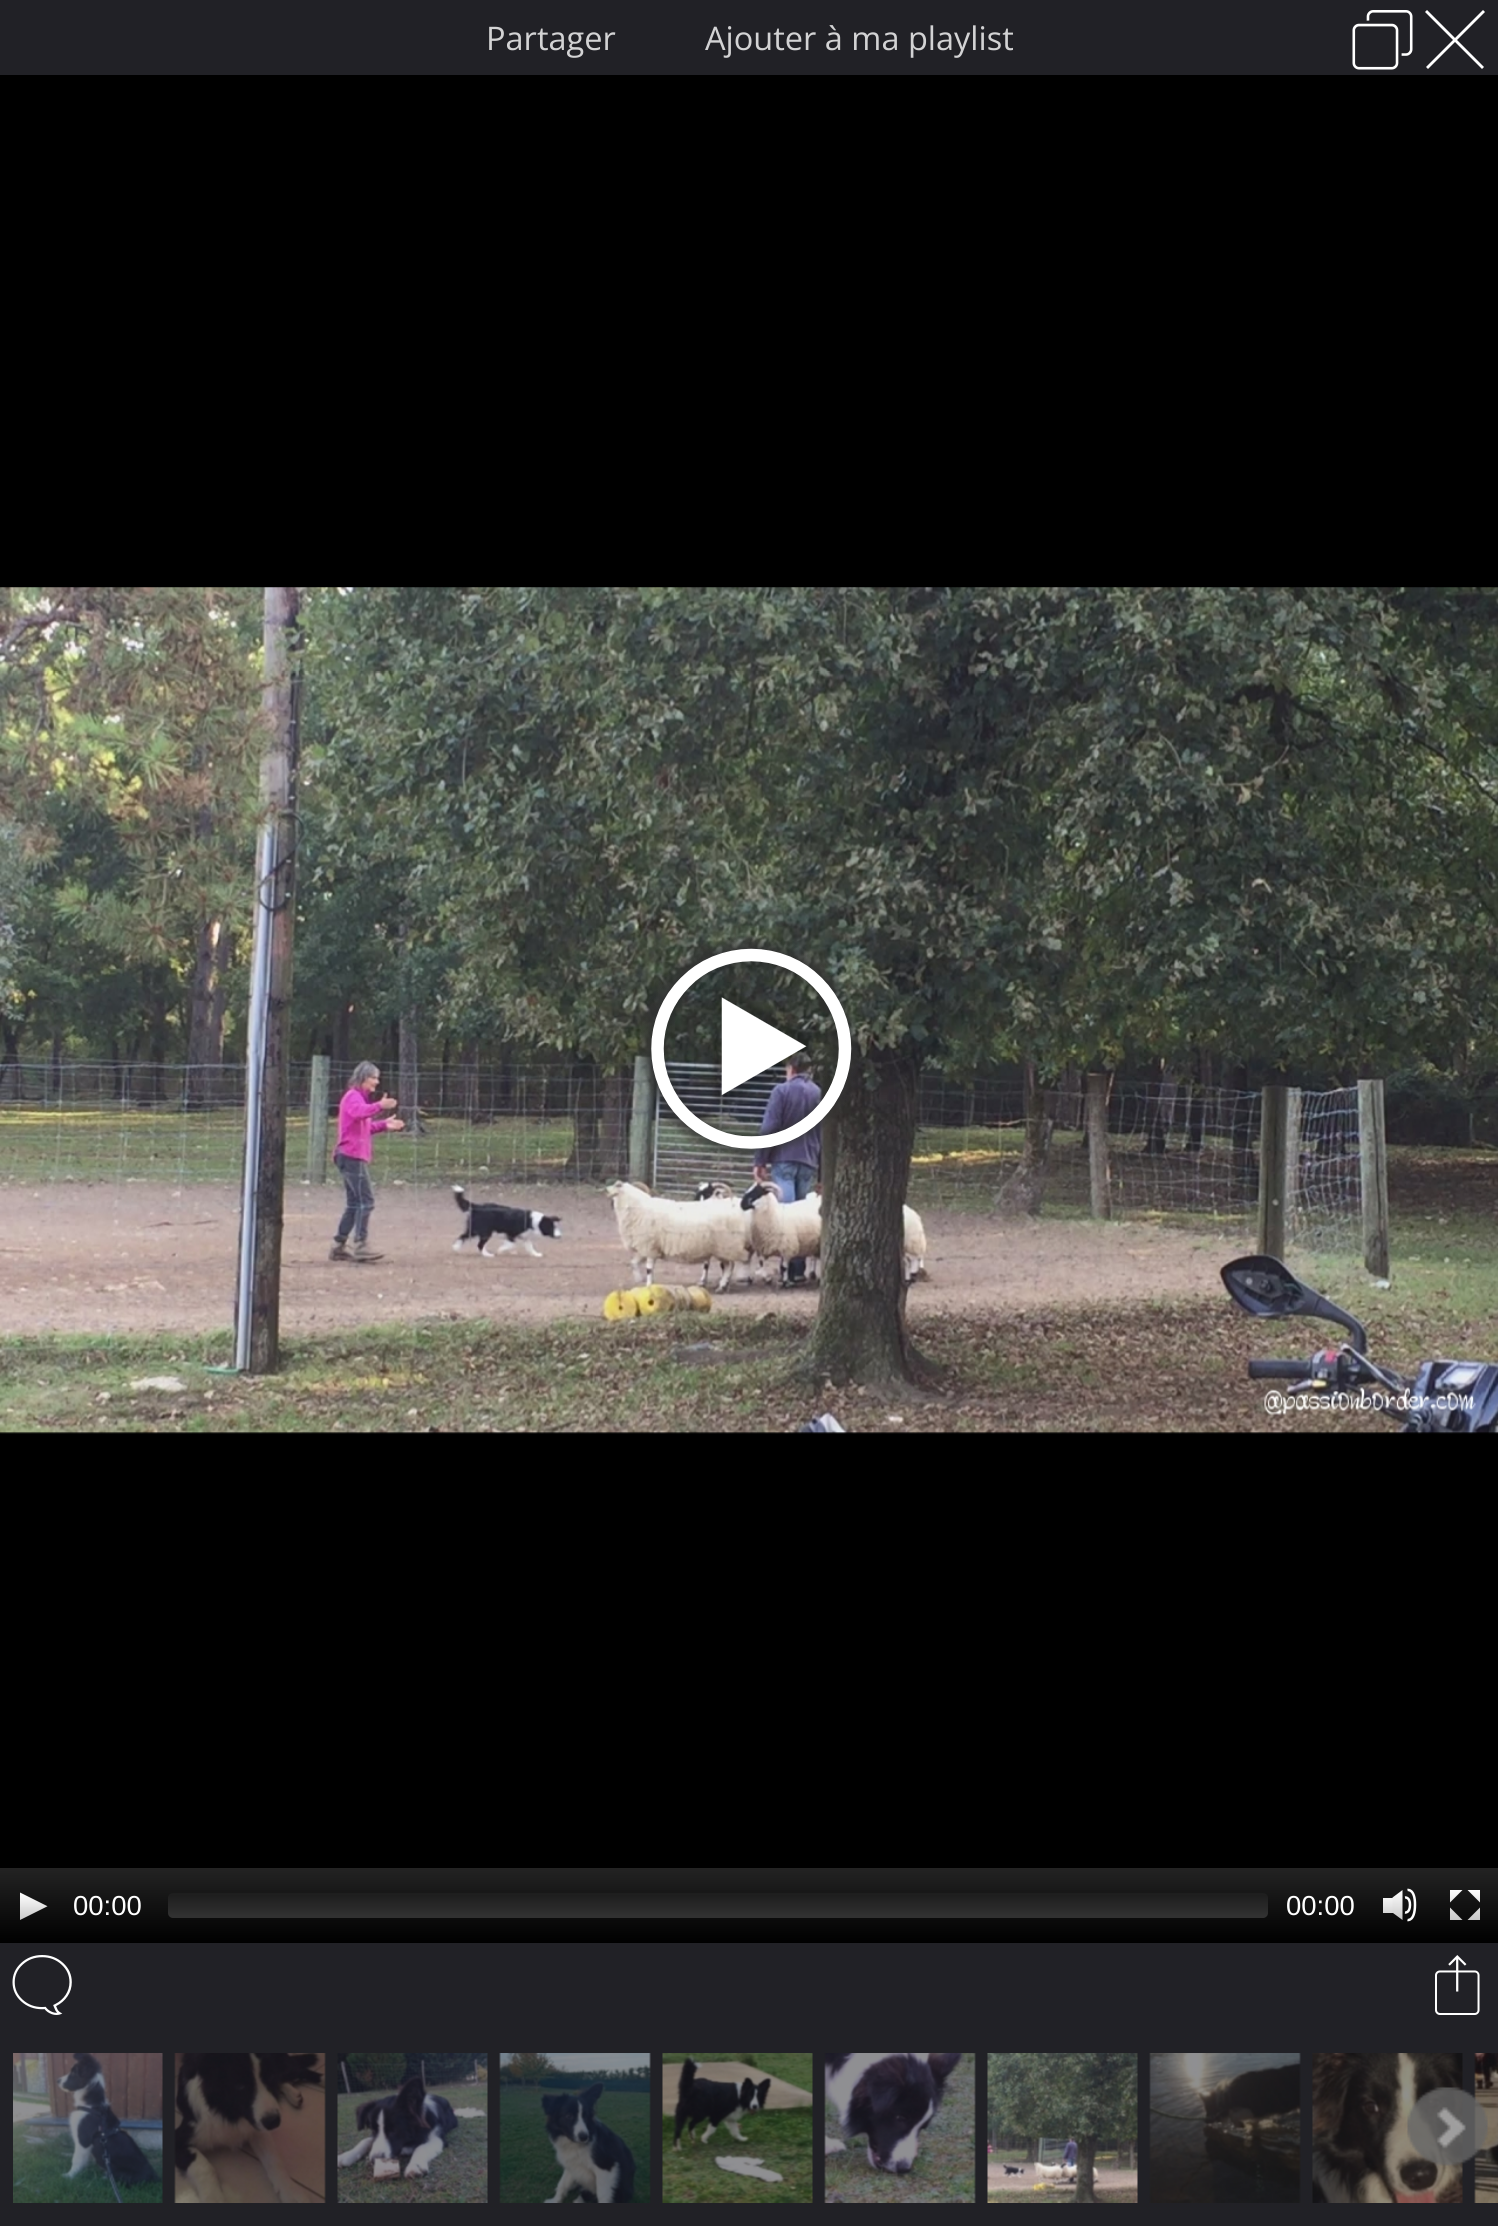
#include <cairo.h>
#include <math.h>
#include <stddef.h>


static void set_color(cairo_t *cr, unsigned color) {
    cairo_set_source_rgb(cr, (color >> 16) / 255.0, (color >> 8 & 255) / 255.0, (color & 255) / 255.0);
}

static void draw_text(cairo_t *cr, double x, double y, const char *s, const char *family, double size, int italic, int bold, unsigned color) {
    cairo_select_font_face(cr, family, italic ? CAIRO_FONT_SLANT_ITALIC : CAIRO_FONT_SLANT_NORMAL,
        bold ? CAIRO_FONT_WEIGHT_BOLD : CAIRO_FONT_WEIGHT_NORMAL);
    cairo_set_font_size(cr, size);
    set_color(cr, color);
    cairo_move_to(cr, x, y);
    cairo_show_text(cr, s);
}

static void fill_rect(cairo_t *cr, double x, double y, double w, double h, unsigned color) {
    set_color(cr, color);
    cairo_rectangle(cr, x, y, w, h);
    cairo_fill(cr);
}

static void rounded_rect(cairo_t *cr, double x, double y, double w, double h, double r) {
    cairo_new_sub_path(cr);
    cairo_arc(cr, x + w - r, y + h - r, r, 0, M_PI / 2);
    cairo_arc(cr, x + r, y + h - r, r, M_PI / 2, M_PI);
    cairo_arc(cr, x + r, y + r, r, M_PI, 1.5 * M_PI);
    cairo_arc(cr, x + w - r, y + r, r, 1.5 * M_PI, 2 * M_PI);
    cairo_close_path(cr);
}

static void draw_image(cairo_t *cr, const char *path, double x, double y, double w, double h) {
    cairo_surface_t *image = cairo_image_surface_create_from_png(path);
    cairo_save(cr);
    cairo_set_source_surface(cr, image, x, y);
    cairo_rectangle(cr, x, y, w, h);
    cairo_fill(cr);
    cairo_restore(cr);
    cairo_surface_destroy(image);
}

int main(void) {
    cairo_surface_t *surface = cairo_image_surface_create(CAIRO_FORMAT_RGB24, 1498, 2226);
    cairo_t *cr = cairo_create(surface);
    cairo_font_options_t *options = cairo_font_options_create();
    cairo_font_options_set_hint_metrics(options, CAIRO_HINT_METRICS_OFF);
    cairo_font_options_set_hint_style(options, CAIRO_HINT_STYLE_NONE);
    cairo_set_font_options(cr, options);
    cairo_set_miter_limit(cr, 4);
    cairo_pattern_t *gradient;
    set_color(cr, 0x212126);
    cairo_paint(cr);
    draw_text(cr, 486, 50, "Partager", "Open Sans", 32.5, 0, 0, 0xD3D3D4);
    draw_text(cr, 705, 50, "Ajouter à ma playlist", "Open Sans", 32.5, 0, 0, 0xD3D3D4);
    fill_rect(cr, 0, 75, 1498, 1793, 0x000000);
    draw_image(cr, "assets/img1.png", 0, 587, 1498, 2);
    draw_image(cr, "assets/img2.png", 0, 587, 1498, 847);
    draw_image(cr, "assets/img3.png", 639, 936, 222, 223);
    gradient = cairo_pattern_create_linear(750, 1868, 750, 1943);
    cairo_pattern_add_color_stop_rgba(gradient, 0, 0.137, 0.137, 0.137, 1);
    cairo_pattern_add_color_stop_rgba(gradient, 1, 0, 0, 0, 1);
    cairo_set_source(cr, gradient);
    cairo_pattern_destroy(gradient);
    cairo_rectangle(cr, 0, 1868, 1498, 75);
    cairo_fill(cr);
    draw_image(cr, "assets/img4.png", 20, 1892, 28, 28);
    draw_text(cr, 73, 1915, "00:00", "Liberation Sans", 27.5, 0, 0, 0xFFFFFF);
    gradient = cairo_pattern_create_linear(718, 1893, 718, 1918);
    cairo_pattern_add_color_stop_rgba(gradient, 0, 0.118, 0.118, 0.118, 0.8);
    cairo_pattern_add_color_stop_rgba(gradient, 1, 0.235, 0.235, 0.235, 0.8);
    cairo_set_source(cr, gradient);
    cairo_pattern_destroy(gradient);
    rounded_rect(cr, 168, 1893, 1100, 25, 5);
    cairo_fill(cr);
    draw_text(cr, 1286, 1915, "00:00", "Liberation Sans", 27.5, 0, 0, 0xFFFFFF);
    draw_image(cr, "assets/img5.png", 1383, 1888, 34, 34);
    draw_image(cr, "assets/img6.png", 1450, 1890, 30, 30);
    draw_image(cr, "assets/img7.png", 12, 1955, 60, 60);
    draw_image(cr, "assets/img8.png", 1435, 1955, 45, 60);
    draw_image(cr, "assets/img9.png", 13, 2053, 150, 150);
    draw_image(cr, "assets/img10.png", 174, 2053, 152, 150);
    draw_image(cr, "assets/img11.png", 337, 2053, 151, 150);
    draw_image(cr, "assets/img12.png", 499, 2053, 152, 150);
    draw_image(cr, "assets/img13.png", 662, 2053, 151, 150);
    draw_image(cr, "assets/img14.png", 824, 2053, 152, 150);
    draw_image(cr, "assets/img15.png", 987, 2053, 151, 150);
    draw_image(cr, "assets/img16.png", 1149, 2053, 152, 150);
    draw_image(cr, "assets/img17.png", 1312, 2053, 151, 150);
    draw_image(cr, "assets/img18.png", 1474, 2053, 24, 150);
    draw_image(cr, "assets/img19.png", 1407, 2087, 81, 79);
    draw_image(cr, "assets/img20.png", 1352, 10, 61, 60);
    cairo_new_path(cr);
    cairo_move_to(cr, 1485, 12);
    cairo_line_to(cr, 1457, 40);
    cairo_line_to(cr, 1484, 67);
    cairo_line_to(cr, 1482, 69);
    cairo_line_to(cr, 1455, 42);
    cairo_line_to(cr, 1428, 69);
    cairo_line_to(cr, 1426, 67);
    cairo_line_to(cr, 1453, 40);
    cairo_line_to(cr, 1425, 12);
    cairo_line_to(cr, 1427, 10);
    cairo_line_to(cr, 1455, 38);
    cairo_line_to(cr, 1483, 10);
    cairo_close_path(cr);
    cairo_fill(cr);
    cairo_surface_write_to_png(surface, "output.png");
    cairo_font_options_destroy(options);
    cairo_destroy(cr);
    cairo_surface_destroy(surface);
    return 0;
}
